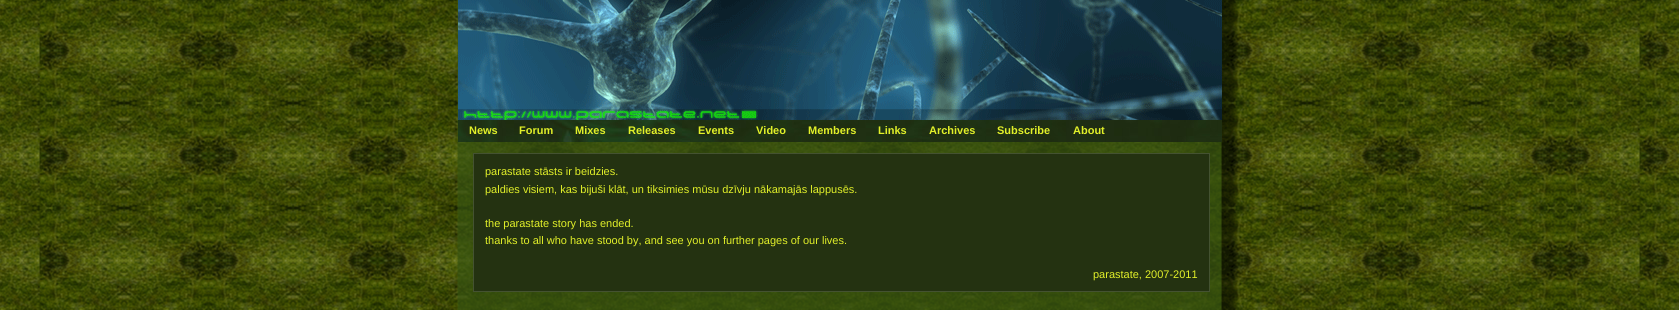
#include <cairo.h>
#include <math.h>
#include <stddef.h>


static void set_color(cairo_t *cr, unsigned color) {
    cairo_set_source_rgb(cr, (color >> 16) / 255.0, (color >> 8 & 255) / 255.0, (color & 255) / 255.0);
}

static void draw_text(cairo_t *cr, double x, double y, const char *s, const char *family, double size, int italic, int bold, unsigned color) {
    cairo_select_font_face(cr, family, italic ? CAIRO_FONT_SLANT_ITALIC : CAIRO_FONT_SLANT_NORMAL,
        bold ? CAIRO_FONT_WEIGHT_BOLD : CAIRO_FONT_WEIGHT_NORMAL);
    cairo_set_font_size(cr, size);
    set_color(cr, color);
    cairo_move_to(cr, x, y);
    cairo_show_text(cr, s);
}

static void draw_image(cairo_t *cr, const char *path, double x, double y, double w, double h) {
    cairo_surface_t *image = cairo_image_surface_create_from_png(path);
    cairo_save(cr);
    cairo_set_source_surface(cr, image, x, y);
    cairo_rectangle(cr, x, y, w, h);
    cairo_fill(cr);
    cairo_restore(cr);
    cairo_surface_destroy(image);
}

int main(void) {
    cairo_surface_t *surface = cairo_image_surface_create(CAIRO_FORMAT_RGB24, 1679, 310);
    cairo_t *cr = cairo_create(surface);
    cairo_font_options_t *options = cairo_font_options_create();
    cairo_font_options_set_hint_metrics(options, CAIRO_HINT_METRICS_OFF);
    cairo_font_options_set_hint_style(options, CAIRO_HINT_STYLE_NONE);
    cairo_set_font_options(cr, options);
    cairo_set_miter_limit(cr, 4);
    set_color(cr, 0xFFFFFF);
    cairo_paint(cr);
    draw_image(cr, "assets/img1.png", 0, 0, 1679, 310);
    draw_image(cr, "assets/img2.png", 458, 0, 764, 120);
    draw_image(cr, "assets/img3.png", 458, 120, 764, 22);
    draw_text(cr, 469, 134, "News", "Liberation Sans", 11, 0, 1, 0xE2F029);
    draw_text(cr, 519, 134, "Forum", "Liberation Sans", 11, 0, 1, 0xE2F029);
    draw_text(cr, 575, 134, "Mixes", "Liberation Sans", 11, 0, 1, 0xE2F029);
    draw_text(cr, 628, 134, "Releases", "Liberation Sans", 11, 0, 1, 0xE2F029);
    draw_text(cr, 698, 134, "Events", "Liberation Sans", 11, 0, 1, 0xE2F029);
    draw_text(cr, 756, 134, "Video", "Liberation Sans", 11, 0, 1, 0xE2F029);
    draw_text(cr, 808, 134, "Members", "Liberation Sans", 11, 0, 1, 0xE2F029);
    draw_text(cr, 878, 134, "Links", "Liberation Sans", 11, 0, 1, 0xE2F029);
    draw_text(cr, 929, 134, "Archives", "Liberation Sans", 11, 0, 1, 0xE2F029);
    draw_text(cr, 997, 134, "Subscribe", "Liberation Sans", 11, 0, 1, 0xE2F029);
    draw_text(cr, 1073, 134, "About", "Liberation Sans", 11, 0, 1, 0xE2F029);
    set_color(cr, 0x243211);
    cairo_rectangle(cr, 473.5, 153.5, 736, 138);
    cairo_fill_preserve(cr);
    set_color(cr, 0x445231);
    cairo_set_line_width(cr, 1);
    cairo_stroke(cr);
    draw_text(cr, 485, 175, "parastate stāsts ir beidzies.", "Liberation Sans", 11, 0, 0, 0xE2F029);
    draw_text(cr, 485, 193, "paldies visiem, kas bijuši klāt, un tiksimies mūsu dzīvju nākamajās lappusēs.", "Liberation Sans", 11, 0, 0, 0xE2F029);
    draw_text(cr, 485, 227, "the parastate story has ended.", "Liberation Sans", 11, 0, 0, 0xE2F029);
    draw_text(cr, 485, 244, "thanks to all who have stood by, and see you on further pages of our lives.", "Liberation Sans", 11, 0, 0, 0xE2F029);
    draw_text(cr, 1093, 278, "parastate, 2007-2011", "Liberation Sans", 11, 0, 0, 0xE2F029);
    cairo_surface_write_to_png(surface, "output.png");
    cairo_font_options_destroy(options);
    cairo_destroy(cr);
    cairo_surface_destroy(surface);
    return 0;
}
